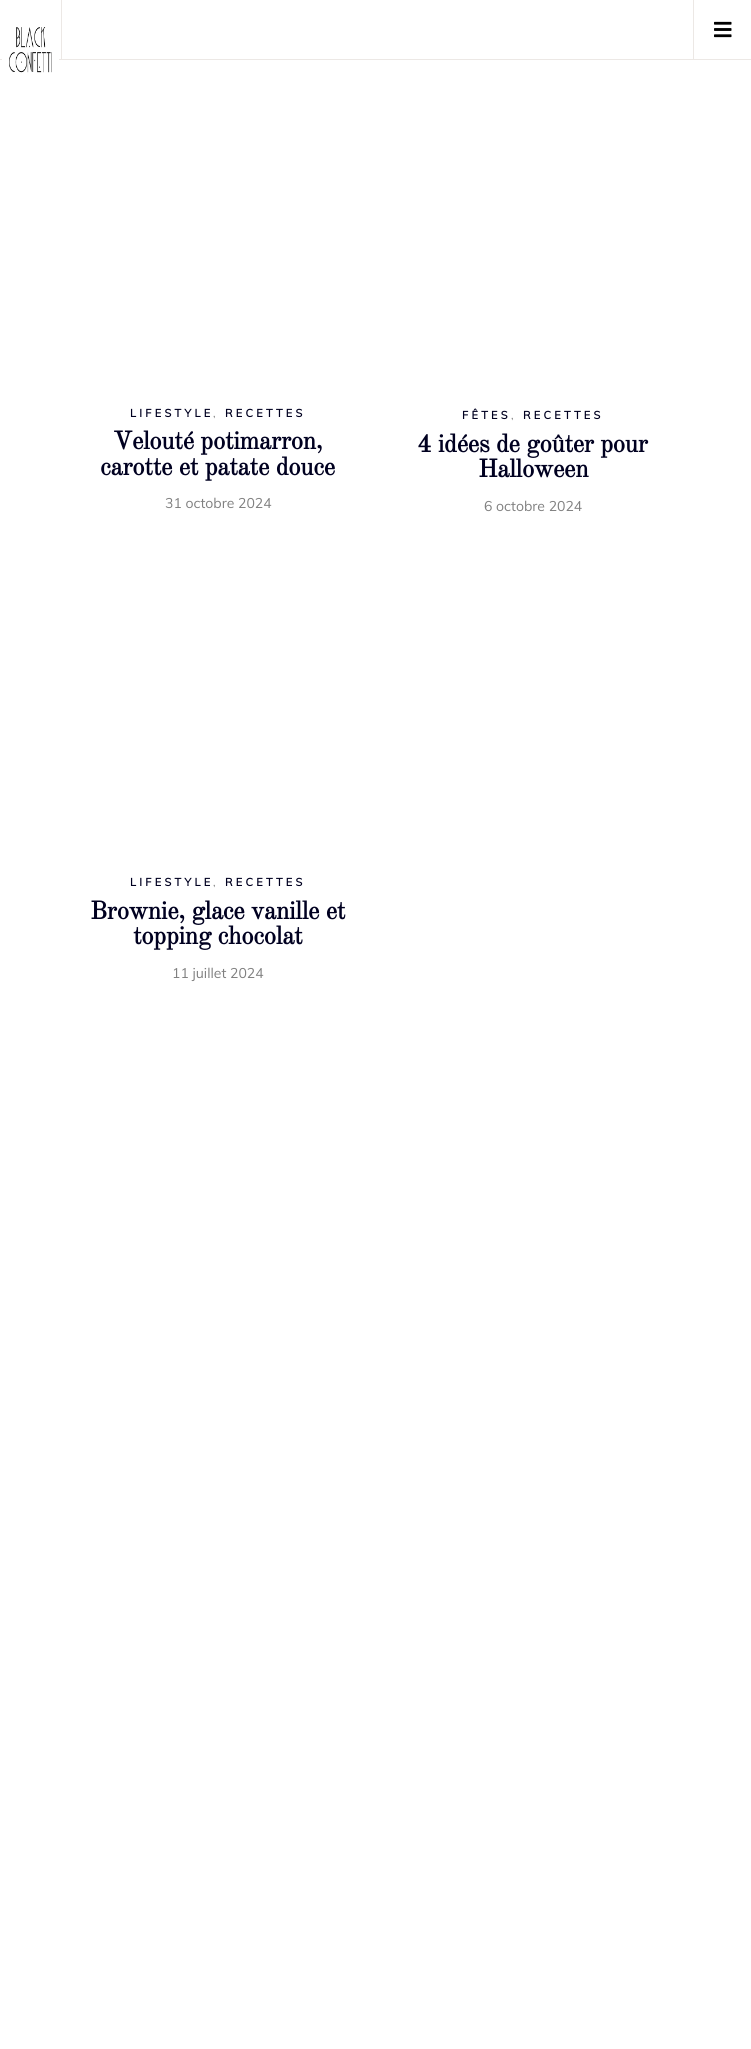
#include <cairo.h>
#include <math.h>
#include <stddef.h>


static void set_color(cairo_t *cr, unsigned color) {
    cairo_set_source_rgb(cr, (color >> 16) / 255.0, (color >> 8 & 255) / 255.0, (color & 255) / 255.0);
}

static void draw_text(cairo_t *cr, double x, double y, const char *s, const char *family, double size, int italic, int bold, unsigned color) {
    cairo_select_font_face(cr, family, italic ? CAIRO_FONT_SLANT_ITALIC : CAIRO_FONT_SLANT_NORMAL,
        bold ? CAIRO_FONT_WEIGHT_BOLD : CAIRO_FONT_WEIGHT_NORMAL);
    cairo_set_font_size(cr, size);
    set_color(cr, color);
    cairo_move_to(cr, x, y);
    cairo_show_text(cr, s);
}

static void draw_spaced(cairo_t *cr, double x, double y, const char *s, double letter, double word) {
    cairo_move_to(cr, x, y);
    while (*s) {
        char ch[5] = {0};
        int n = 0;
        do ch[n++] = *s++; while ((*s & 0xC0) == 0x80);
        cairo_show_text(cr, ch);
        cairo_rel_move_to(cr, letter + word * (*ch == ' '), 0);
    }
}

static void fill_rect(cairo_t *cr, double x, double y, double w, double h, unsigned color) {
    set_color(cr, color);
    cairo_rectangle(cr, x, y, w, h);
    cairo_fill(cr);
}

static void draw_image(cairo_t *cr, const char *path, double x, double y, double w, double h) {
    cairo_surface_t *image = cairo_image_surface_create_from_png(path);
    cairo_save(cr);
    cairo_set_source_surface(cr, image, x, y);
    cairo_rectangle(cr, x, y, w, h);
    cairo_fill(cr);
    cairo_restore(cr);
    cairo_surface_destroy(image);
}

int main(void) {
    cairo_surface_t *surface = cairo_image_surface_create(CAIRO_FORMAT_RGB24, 751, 2049);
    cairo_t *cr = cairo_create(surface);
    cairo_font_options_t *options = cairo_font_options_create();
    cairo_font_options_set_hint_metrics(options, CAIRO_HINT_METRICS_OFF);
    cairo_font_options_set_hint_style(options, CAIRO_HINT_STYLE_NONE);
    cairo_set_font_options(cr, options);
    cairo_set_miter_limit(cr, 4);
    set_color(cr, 0xFFFFFF);
    cairo_paint(cr);
    fill_rect(cr, 0, 59, 751, 1, 0xECE8E5);
    fill_rect(cr, 61, 0, 1, 59, 0xECE8E5);
    draw_image(cr, "assets/img1.png", 2, 27, 57, 46);
    fill_rect(cr, 693, 0, 1, 59, 0xECE8E5);
    draw_image(cr, "assets/img2.png", 714, 21, 18, 17);
    cairo_select_font_face(cr, "Muli", CAIRO_FONT_SLANT_NORMAL, CAIRO_FONT_WEIGHT_BOLD);
    cairo_set_font_size(cr, 11);
    set_color(cr, 0x000020);
    draw_spaced(cr, 130, 417, "LIFESTYLE", 3.25, 0);
    cairo_select_font_face(cr, "Muli", CAIRO_FONT_SLANT_NORMAL, CAIRO_FONT_WEIGHT_NORMAL);
    set_color(cr, 0x808080);
    draw_spaced(cr, 213, 417, ",", 3.25, 0);
    cairo_select_font_face(cr, "Muli", CAIRO_FONT_SLANT_NORMAL, CAIRO_FONT_WEIGHT_BOLD);
    set_color(cr, 0x000020);
    draw_spaced(cr, 225, 417, "RECETTES", 3.25, 0);
    cairo_select_font_face(cr, "Old Standard TT", CAIRO_FONT_SLANT_NORMAL, CAIRO_FONT_WEIGHT_BOLD);
    cairo_set_font_size(cr, 25);
    draw_spaced(cr, 113, 449, "Velouté potimarron,", -0.4, 0);
    draw_spaced(cr, 100, 475, "carotte et patate douce", -0.4, 0);
    draw_text(cr, 165, 508, "31 octobre 2024", "Muli", 14, 0, 0, 0x808080);
    cairo_select_font_face(cr, "Muli", CAIRO_FONT_SLANT_NORMAL, CAIRO_FONT_WEIGHT_BOLD);
    cairo_set_font_size(cr, 11);
    set_color(cr, 0x000020);
    draw_spaced(cr, 462, 419, "FÊTES", 3.25, 0);
    cairo_select_font_face(cr, "Muli", CAIRO_FONT_SLANT_NORMAL, CAIRO_FONT_WEIGHT_NORMAL);
    set_color(cr, 0x808080);
    draw_spaced(cr, 511, 419, ",", 3.25, 0);
    cairo_select_font_face(cr, "Muli", CAIRO_FONT_SLANT_NORMAL, CAIRO_FONT_WEIGHT_BOLD);
    set_color(cr, 0x000020);
    draw_spaced(cr, 523, 419, "RECETTES", 3.25, 0);
    cairo_select_font_face(cr, "Old Standard TT", CAIRO_FONT_SLANT_NORMAL, CAIRO_FONT_WEIGHT_BOLD);
    cairo_set_font_size(cr, 25);
    draw_spaced(cr, 417, 452, "4 idées de goûter pour", -0.4, 0);
    draw_spaced(cr, 478, 477, "Halloween", -0.4, 0);
    draw_text(cr, 484, 511, "6 octobre 2024", "Muli", 14, 0, 0, 0x808080);
    cairo_select_font_face(cr, "Muli", CAIRO_FONT_SLANT_NORMAL, CAIRO_FONT_WEIGHT_BOLD);
    cairo_set_font_size(cr, 11);
    set_color(cr, 0x000020);
    draw_spaced(cr, 130, 886, "LIFESTYLE", 3.25, 0);
    cairo_select_font_face(cr, "Muli", CAIRO_FONT_SLANT_NORMAL, CAIRO_FONT_WEIGHT_NORMAL);
    set_color(cr, 0x808080);
    draw_spaced(cr, 213, 886, ",", 3.25, 0);
    cairo_select_font_face(cr, "Muli", CAIRO_FONT_SLANT_NORMAL, CAIRO_FONT_WEIGHT_BOLD);
    set_color(cr, 0x000020);
    draw_spaced(cr, 225, 886, "RECETTES", 3.25, 0);
    cairo_select_font_face(cr, "Old Standard TT", CAIRO_FONT_SLANT_NORMAL, CAIRO_FONT_WEIGHT_BOLD);
    cairo_set_font_size(cr, 25);
    draw_spaced(cr, 90, 919, "Brownie, glace vanille et", -0.4, 0);
    draw_spaced(cr, 133, 944, "topping chocolat", -0.4, 0);
    draw_text(cr, 172, 978, "11 juillet 2024", "Muli", 14, 0, 0, 0x808080);
    cairo_surface_write_to_png(surface, "output.png");
    cairo_font_options_destroy(options);
    cairo_destroy(cr);
    cairo_surface_destroy(surface);
    return 0;
}
